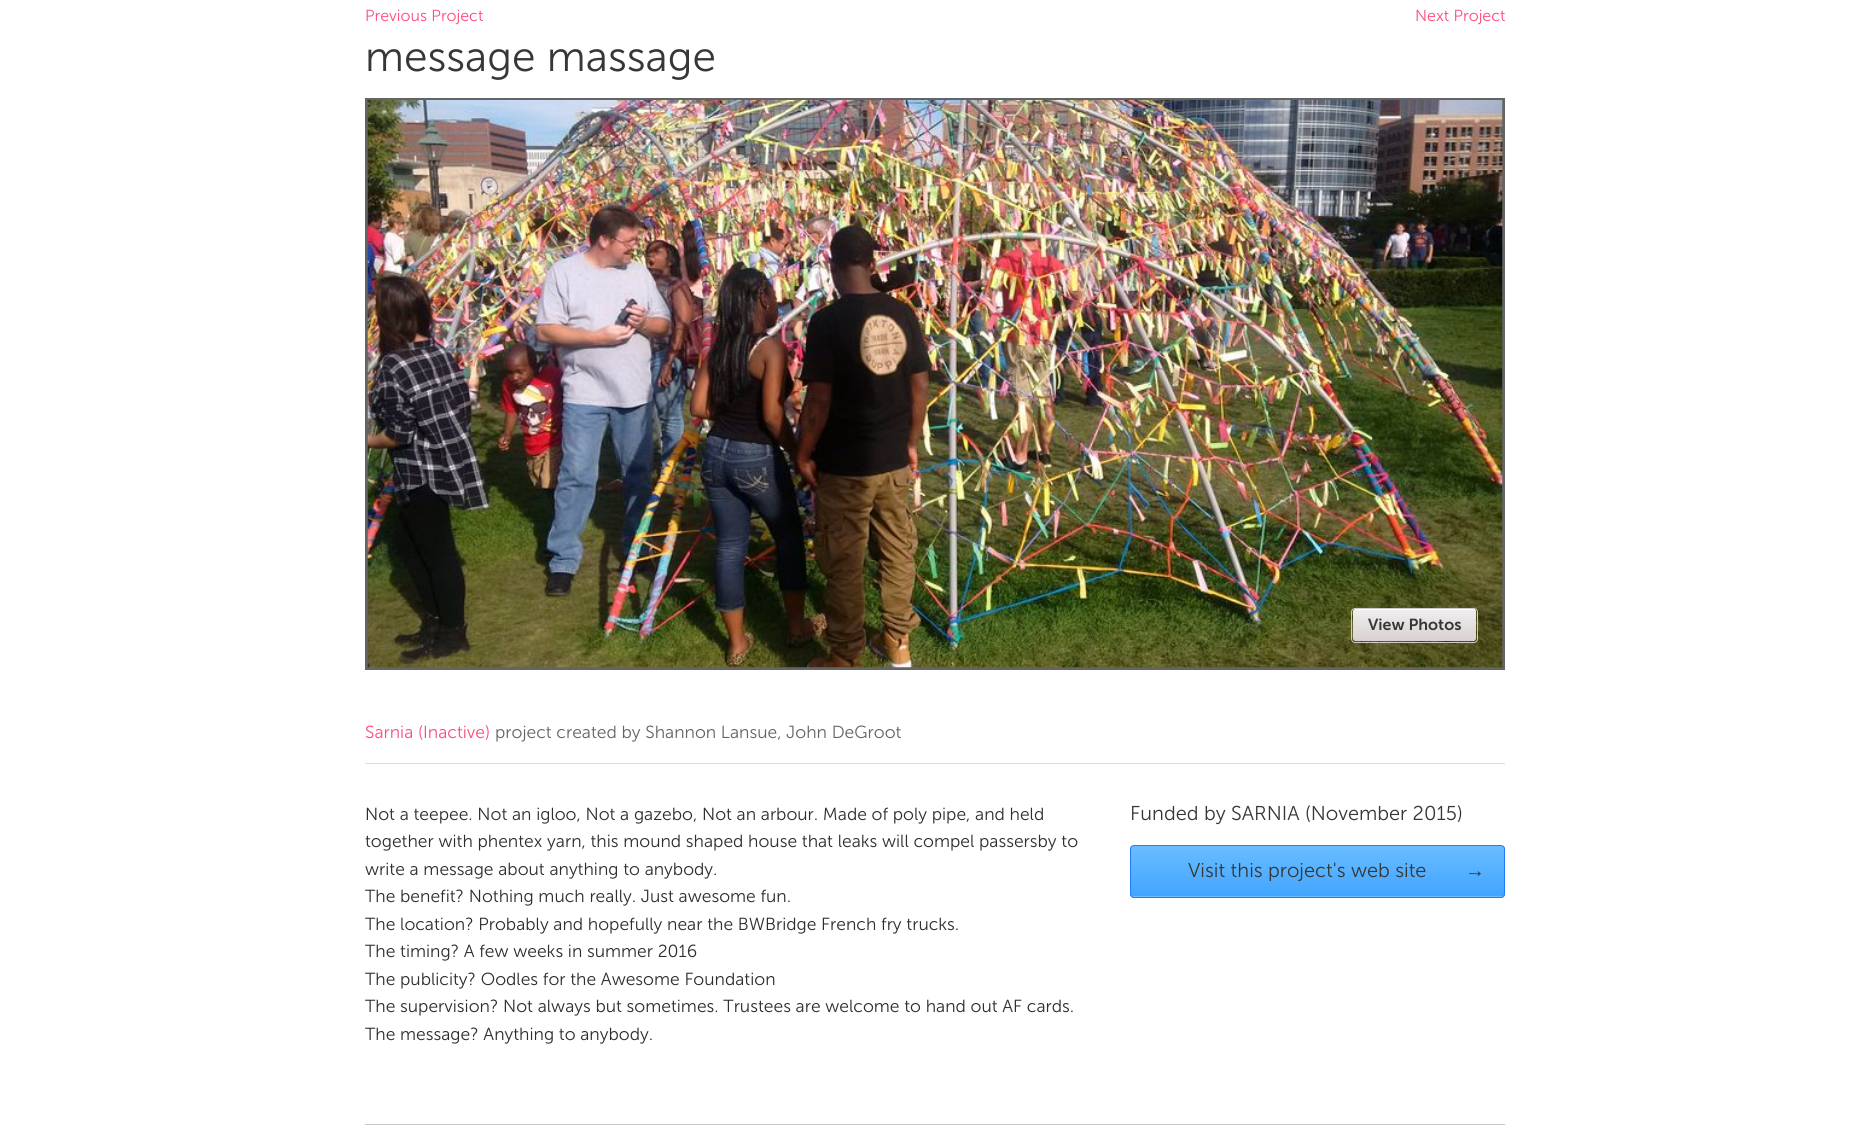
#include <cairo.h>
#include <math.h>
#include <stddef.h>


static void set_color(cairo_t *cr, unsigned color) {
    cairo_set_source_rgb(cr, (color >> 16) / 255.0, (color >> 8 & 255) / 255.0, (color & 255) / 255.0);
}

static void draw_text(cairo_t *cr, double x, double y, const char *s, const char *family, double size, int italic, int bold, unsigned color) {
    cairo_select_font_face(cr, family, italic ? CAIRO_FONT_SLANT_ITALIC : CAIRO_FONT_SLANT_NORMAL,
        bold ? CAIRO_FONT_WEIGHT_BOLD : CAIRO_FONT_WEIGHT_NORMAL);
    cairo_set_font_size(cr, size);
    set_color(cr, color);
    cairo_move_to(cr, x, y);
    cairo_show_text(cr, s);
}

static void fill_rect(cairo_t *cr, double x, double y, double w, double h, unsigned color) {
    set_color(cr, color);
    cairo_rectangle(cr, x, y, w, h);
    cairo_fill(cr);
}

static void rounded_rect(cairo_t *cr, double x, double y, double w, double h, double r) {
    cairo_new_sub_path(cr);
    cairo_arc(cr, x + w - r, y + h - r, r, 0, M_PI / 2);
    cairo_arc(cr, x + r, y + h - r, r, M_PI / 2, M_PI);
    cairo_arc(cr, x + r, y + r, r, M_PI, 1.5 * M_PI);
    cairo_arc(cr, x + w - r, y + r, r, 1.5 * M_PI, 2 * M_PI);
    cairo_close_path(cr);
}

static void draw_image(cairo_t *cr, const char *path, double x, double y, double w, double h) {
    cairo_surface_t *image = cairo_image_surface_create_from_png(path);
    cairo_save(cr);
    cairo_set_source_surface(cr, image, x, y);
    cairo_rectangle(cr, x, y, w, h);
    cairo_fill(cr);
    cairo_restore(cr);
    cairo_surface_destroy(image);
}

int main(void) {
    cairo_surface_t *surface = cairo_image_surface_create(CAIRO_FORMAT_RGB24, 1870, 1131);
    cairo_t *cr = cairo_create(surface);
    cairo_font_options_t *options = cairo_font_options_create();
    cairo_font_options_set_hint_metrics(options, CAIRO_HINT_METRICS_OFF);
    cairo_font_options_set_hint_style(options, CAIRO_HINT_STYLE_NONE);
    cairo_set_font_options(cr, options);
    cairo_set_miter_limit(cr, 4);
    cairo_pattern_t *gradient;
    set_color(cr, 0xFFFFFF);
    cairo_paint(cr);
    draw_text(cr, 365, 21, "Previous Project", "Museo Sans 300 Light", 16, 0, 0, 0xFF4B7E);
    draw_text(cr, 1415, 21, "Next Project", "Museo Sans 300 Light", 16, 0, 0, 0xFF4B7E);
    draw_text(cr, 365, 71, "message massage", "Museo Sans 300 Light", 42.5, 0, 0, 0x373737);
    fill_rect(cr, 365, 98, 1140, 572, 0x646464);
    draw_image(cr, "assets/img1.png", 367, 100, 1136, 568);
    gradient = cairo_pattern_create_linear(1414, 609, 1414, 641);
    cairo_pattern_add_color_stop_rgba(gradient, 0, 0.941, 0.941, 0.941, 1);
    cairo_pattern_add_color_stop_rgba(gradient, 1, 0.847, 0.816, 0.816, 1);
    cairo_set_source(cr, gradient);
    cairo_pattern_destroy(gradient);
    rounded_rect(cr, 1353, 609, 123, 32, 2.5);
    cairo_fill(cr);
    set_color(cr, 0xFFFFFF);
    cairo_new_path(cr);
    cairo_move_to(cr, 1355, 610);
    cairo_line_to(cr, 1474, 610);
    cairo_line_to(cr, 1476, 611);
    cairo_line_to(cr, 1476, 612);
    cairo_curve_to(cr, 1476, 610, 1475, 609, 1474, 609);
    cairo_line_to(cr, 1356, 609);
    cairo_curve_to(cr, 1354, 609, 1354, 610, 1353, 611);
    cairo_close_path(cr);
    cairo_fill(cr);
    rounded_rect(cr, 1351.5, 608.5, 126, 34, 3.5);
    set_color(cr, 0xD1C8C8);
    cairo_set_line_width(cr, 1);
    cairo_stroke(cr);
    draw_text(cr, 1368, 630, "View Photos", "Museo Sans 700 SemiBold", 16, 0, 0, 0x373737);
    fill_rect(cr, 365, 763, 1140, 1, 0xDCDCDC);
    draw_text(cr, 365, 738, "Sarnia (Inactive)", "Museo Sans 300 Light", 17.5, 0, 0, 0xFF4B7E);
    draw_text(cr, 495, 738, "project created by Shannon Lansue, John DeGroot", "Museo Sans 300 Light", 17.5, 0, 0, 0x646464);
    draw_text(cr, 365, 820, "Not a teepee. Not an igloo, Not a gazebo, Not an arbour. Made of poly pipe, and held", "Museo Sans 300 Light", 17.5, 0, 0, 0x2E2E2E);
    draw_text(cr, 365, 847, "together with phentex yarn, this mound shaped house that leaks will compel passersby to", "Museo Sans 300 Light", 17.5, 0, 0, 0x2E2E2E);
    draw_text(cr, 365, 875, "write a message about anything to anybody.", "Museo Sans 300 Light", 17.5, 0, 0, 0x2E2E2E);
    draw_text(cr, 365, 902, "The benefit? Nothing much really. Just awesome fun.", "Museo Sans 300 Light", 17.5, 0, 0, 0x2E2E2E);
    draw_text(cr, 365, 930, "The location? Probably and hopefully near the BWBridge French fry trucks.", "Museo Sans 300 Light", 17.5, 0, 0, 0x2E2E2E);
    draw_text(cr, 365, 957, "The timing? A few weeks in summer 2016", "Museo Sans 300 Light", 17.5, 0, 0, 0x2E2E2E);
    draw_text(cr, 365, 985, "The publicity? Oodles for the Awesome Foundation", "Museo Sans 300 Light", 17.5, 0, 0, 0x2E2E2E);
    draw_text(cr, 365, 1012, "The supervision? Not always but sometimes. Trustees are welcome to hand out AF cards.", "Museo Sans 300 Light", 17.5, 0, 0, 0x2E2E2E);
    draw_text(cr, 365, 1040, "The message? Anything to anybody.", "Museo Sans 300 Light", 17.5, 0, 0, 0x2E2E2E);
    draw_text(cr, 1130, 820, "Funded by SARNIA (November 2015)", "Museo Sans 300 Light", 20, 0, 0, 0x373737);
    cairo_save(cr);
    rounded_rect(cr, 1130, 845, 375, 53, 4);
    cairo_clip(cr);
    gradient = cairo_pattern_create_linear(1318, 846, 1318, 896);
    cairo_pattern_add_color_stop_rgba(gradient, 0, 0.416, 0.741, 1, 1);
    cairo_pattern_add_color_stop_rgba(gradient, 1, 0.255, 0.647, 1, 1);
    cairo_set_source(cr, gradient);
    cairo_pattern_destroy(gradient);
    cairo_rectangle(cr, 1130, 846, 375, 50);
    cairo_fill(cr);
    gradient = cairo_pattern_create_linear(1318, 896, 1318, 946);
    cairo_pattern_add_color_stop_rgba(gradient, 0, 0.416, 0.741, 1, 1);
    cairo_pattern_add_color_stop_rgba(gradient, 1, 0.255, 0.647, 1, 1);
    cairo_set_source(cr, gradient);
    cairo_pattern_destroy(gradient);
    cairo_rectangle(cr, 1130, 896, 375, 2);
    cairo_fill(cr);
    cairo_restore(cr);
    rounded_rect(cr, 1130.5, 845.5, 374, 52, 3.5);
    set_color(cr, 0x227AFF);
    cairo_stroke(cr);
    draw_text(cr, 1188, 877, "Visit this project's web site", "Museo Sans 300 Light", 20, 0, 0, 0x373737);
    draw_text(cr, 1465, 877, "→", "Liberation Sans", 20, 0, 0, 0x373737);
    fill_rect(cr, 365, 1124, 1140, 1, 0xC8C8C8);
    cairo_surface_write_to_png(surface, "output.png");
    cairo_font_options_destroy(options);
    cairo_destroy(cr);
    cairo_surface_destroy(surface);
    return 0;
}
